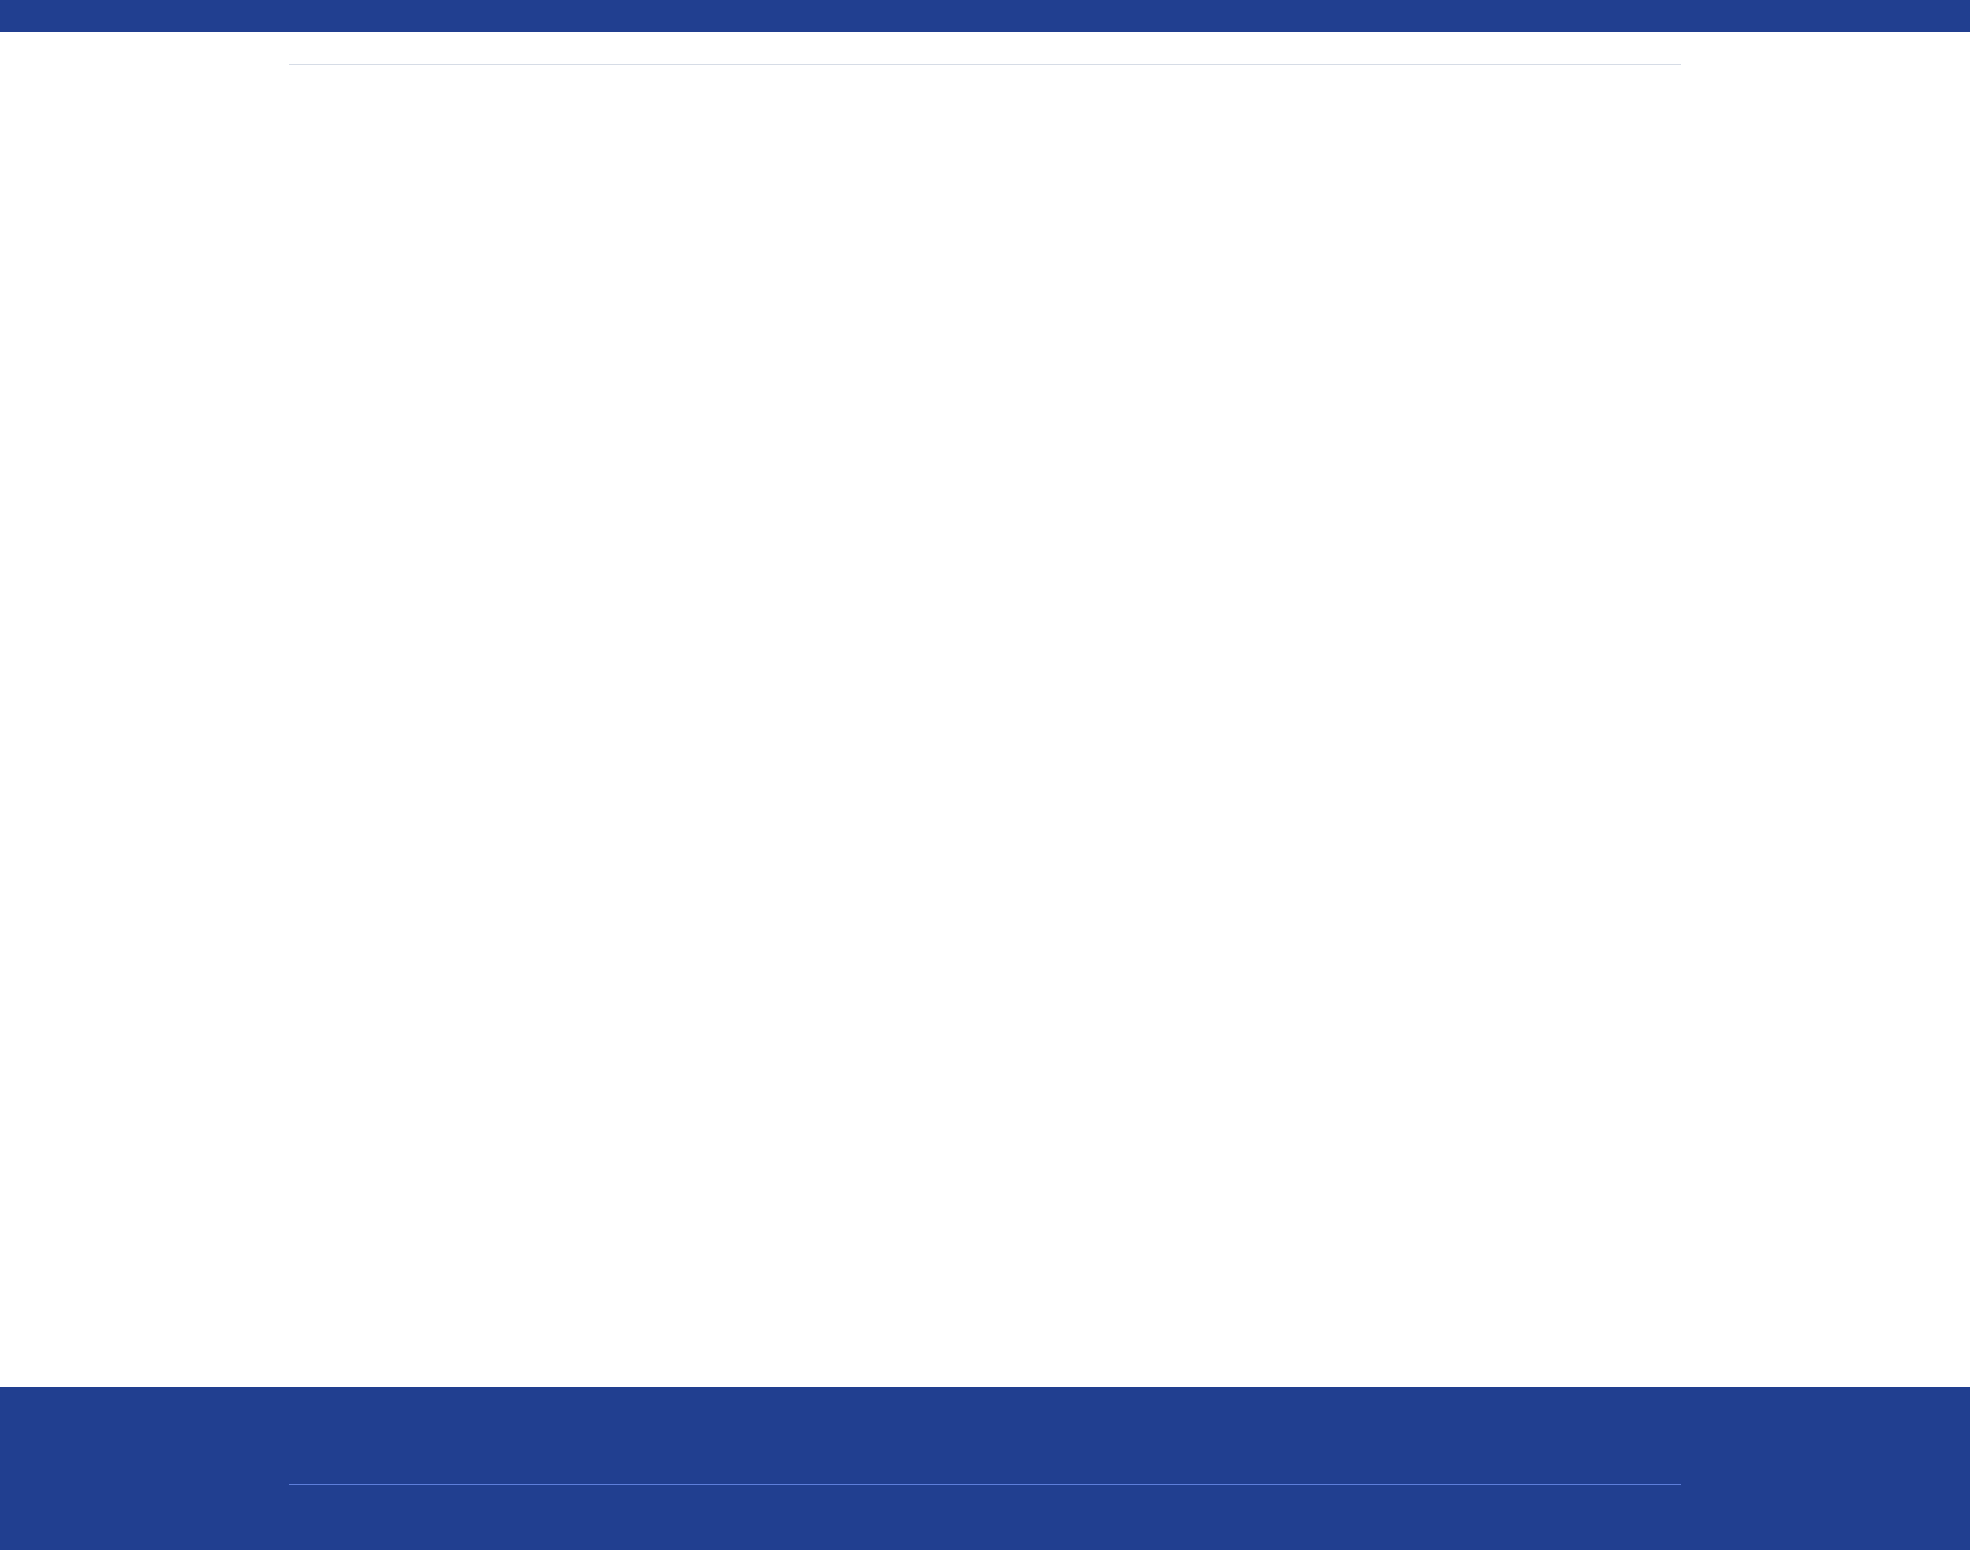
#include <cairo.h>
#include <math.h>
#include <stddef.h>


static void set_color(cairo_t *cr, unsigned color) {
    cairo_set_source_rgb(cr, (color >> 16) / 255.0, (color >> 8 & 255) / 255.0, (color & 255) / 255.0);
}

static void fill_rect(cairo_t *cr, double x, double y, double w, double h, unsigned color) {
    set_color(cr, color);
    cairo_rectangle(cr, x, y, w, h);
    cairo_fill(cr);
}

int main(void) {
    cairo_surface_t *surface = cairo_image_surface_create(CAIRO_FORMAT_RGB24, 1970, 1550);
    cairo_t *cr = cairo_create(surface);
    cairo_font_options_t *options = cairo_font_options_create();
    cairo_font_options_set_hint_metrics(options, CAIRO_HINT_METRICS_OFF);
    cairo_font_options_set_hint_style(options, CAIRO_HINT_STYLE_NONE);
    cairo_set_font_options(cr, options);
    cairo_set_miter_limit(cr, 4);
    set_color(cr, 0xFFFFFF);
    cairo_paint(cr);
    fill_rect(cr, 0, 0, 1970, 32, 0x213F90);
    fill_rect(cr, 289, 64, 1392, 1, 0xD6DCE6);
    fill_rect(cr, 0, 1387, 1970, 163, 0x213F90);
    fill_rect(cr, 289, 1484, 1392, 1, 0x5D7EDA);
    cairo_surface_write_to_png(surface, "output.png");
    cairo_font_options_destroy(options);
    cairo_destroy(cr);
    cairo_surface_destroy(surface);
    return 0;
}
